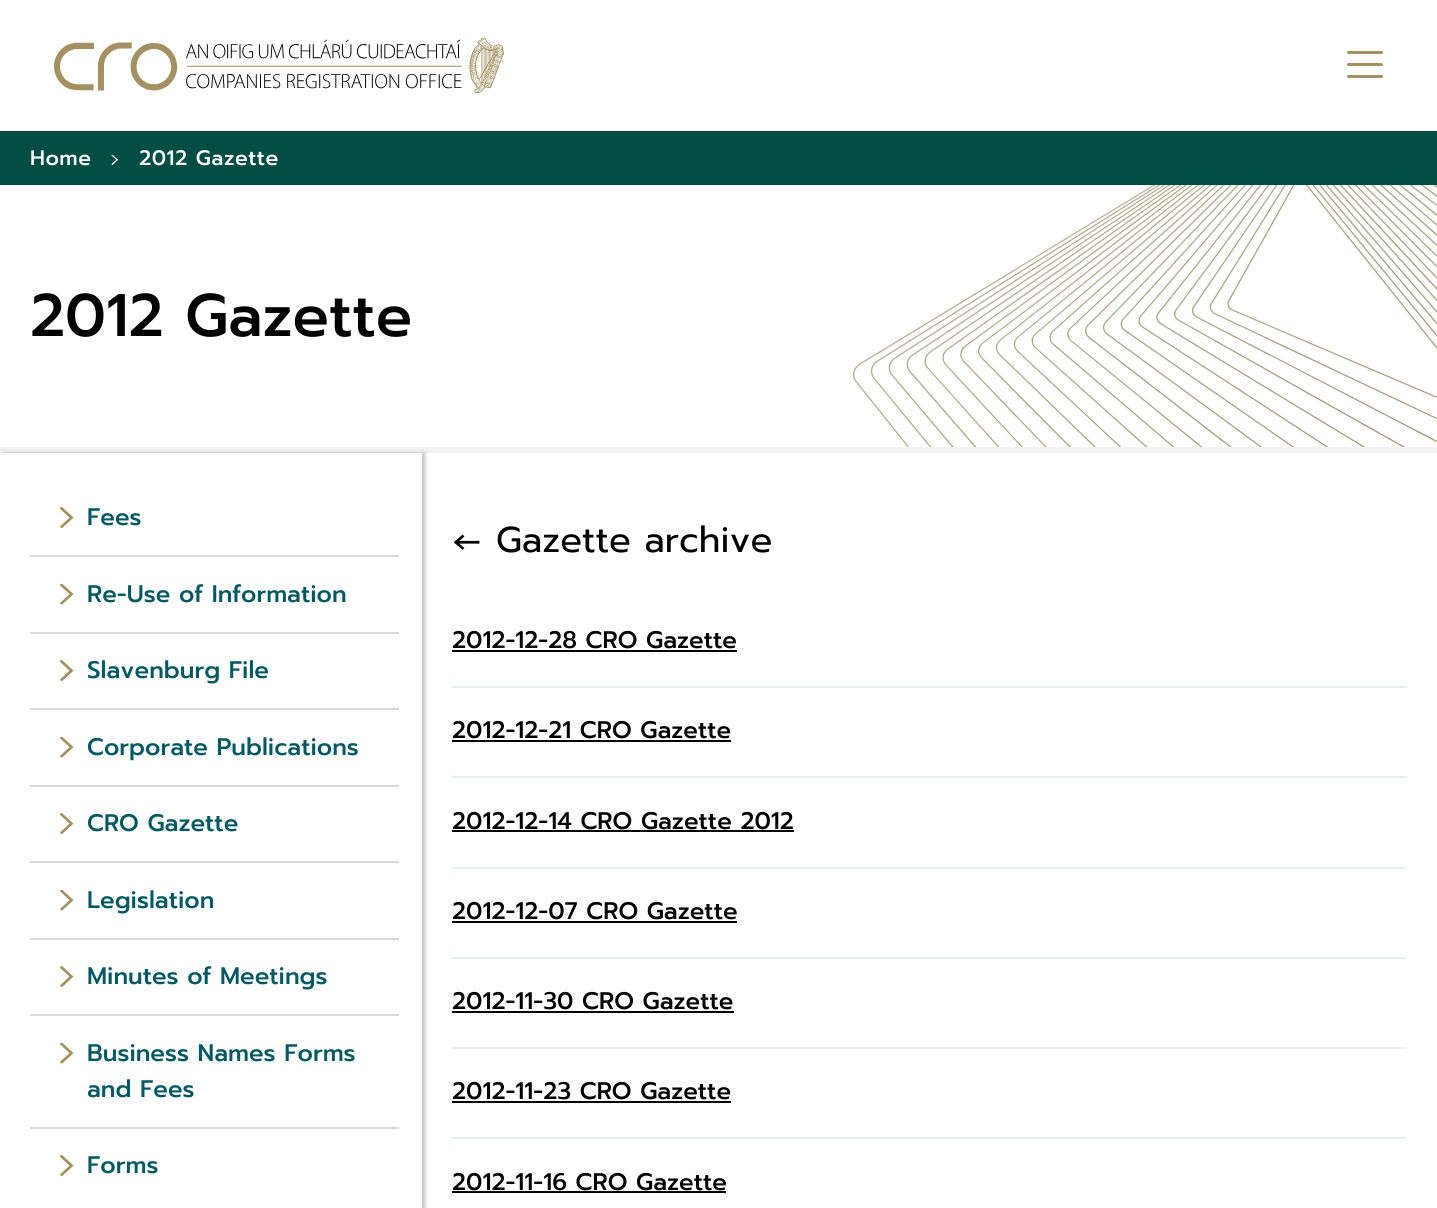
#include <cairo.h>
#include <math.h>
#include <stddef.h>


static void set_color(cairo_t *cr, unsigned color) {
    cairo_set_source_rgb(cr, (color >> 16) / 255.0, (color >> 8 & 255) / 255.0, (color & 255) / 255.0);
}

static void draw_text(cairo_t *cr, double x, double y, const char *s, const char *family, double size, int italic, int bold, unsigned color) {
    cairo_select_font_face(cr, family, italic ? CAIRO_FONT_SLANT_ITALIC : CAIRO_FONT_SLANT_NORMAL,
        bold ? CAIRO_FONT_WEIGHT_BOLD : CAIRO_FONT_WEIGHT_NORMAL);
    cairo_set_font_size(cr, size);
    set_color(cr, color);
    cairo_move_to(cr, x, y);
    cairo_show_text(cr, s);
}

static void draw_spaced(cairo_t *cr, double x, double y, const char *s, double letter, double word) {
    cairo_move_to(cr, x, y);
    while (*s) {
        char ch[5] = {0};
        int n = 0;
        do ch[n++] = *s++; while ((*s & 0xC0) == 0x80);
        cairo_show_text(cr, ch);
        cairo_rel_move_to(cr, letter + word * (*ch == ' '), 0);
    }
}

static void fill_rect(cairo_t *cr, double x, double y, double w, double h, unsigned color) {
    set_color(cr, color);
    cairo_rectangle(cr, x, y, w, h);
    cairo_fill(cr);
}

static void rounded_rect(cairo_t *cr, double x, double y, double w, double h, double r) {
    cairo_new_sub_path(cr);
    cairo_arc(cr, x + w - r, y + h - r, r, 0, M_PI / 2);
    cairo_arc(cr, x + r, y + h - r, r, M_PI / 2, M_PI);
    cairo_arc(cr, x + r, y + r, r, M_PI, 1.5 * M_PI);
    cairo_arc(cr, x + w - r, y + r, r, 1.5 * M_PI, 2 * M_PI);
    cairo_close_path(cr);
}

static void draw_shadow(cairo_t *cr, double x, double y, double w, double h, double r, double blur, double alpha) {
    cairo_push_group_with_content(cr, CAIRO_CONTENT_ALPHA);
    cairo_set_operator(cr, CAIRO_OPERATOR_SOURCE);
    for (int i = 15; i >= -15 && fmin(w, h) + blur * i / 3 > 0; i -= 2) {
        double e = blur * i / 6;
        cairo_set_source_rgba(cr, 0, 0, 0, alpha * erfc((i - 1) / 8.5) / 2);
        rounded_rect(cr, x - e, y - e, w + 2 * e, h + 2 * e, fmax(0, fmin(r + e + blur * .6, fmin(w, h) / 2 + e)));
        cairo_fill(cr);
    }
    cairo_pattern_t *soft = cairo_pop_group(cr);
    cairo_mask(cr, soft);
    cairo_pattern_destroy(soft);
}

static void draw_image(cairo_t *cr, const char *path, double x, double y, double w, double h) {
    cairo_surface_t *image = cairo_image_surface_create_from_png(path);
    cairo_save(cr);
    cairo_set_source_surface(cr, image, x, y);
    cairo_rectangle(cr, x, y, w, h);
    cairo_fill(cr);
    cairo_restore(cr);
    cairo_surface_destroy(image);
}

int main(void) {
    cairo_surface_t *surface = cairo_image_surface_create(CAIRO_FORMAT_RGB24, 1437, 1208);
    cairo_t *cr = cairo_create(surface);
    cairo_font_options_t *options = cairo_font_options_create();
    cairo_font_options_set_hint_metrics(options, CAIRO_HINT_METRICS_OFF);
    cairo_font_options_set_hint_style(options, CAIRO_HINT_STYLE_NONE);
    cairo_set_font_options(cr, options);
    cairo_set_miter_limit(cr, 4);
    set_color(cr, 0xFFFFFF);
    cairo_paint(cr);
    draw_image(cr, "assets/img1.png", 54, 38, 450, 55);
    set_color(cr, 0xA39161);
    rounded_rect(cr, 1347, 51, 36, 3, 1.5);
    cairo_fill(cr);
    rounded_rect(cr, 1347, 63, 36, 3, 1.5);
    cairo_fill(cr);
    rounded_rect(cr, 1347, 75, 36, 3, 1.5);
    cairo_fill(cr);
    fill_rect(cr, 0, 131, 1437, 54, 0x004D44);
    cairo_select_font_face(cr, "Prompt Medium", CAIRO_FONT_SLANT_NORMAL, CAIRO_FONT_WEIGHT_NORMAL);
    cairo_set_font_size(cr, 21);
    set_color(cr, 0xFFFFFF);
    draw_spaced(cr, 30, 165, "Home", 0.5, 0);
    draw_image(cr, "assets/img2.png", 111, 155, 7, 10);
    draw_spaced(cr, 139, 165, "2012 Gazette", 0.5, 0);
    draw_text(cr, 30, 336, "2012 Gazette", "Prompt Medium", 60, 0, 0, 0x000000);
    draw_image(cr, "assets/img3.png", 853, 185, 584, 262);
    fill_rect(cr, 0, 447, 1437, 6, 0xF3F3F3);
    set_color(cr, 0x000000);
    draw_shadow(cr, 3, 453, 422, 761, 0, 2, 0.25);
    fill_rect(cr, 0, 453, 422, 755, 0xFFFFFF);
    draw_image(cr, "assets/img4.png", 60, 507, 14, 21);
    draw_text(cr, 87, 525, "Fees", "Prompt Medium", 24, 0, 0, 0x005962);
    fill_rect(cr, 30, 555, 369, 2, 0xD9D9D9);
    draw_image(cr, "assets/img5.png", 60, 584, 14, 21);
    draw_text(cr, 87, 602, "Re-Use of Information", "Prompt Medium", 24, 0, 0, 0x005962);
    fill_rect(cr, 30, 632, 369, 2, 0xD9D9D9);
    draw_image(cr, "assets/img4.png", 60, 660, 14, 21);
    draw_text(cr, 87, 678, "Slavenburg File", "Prompt Medium", 24, 0, 0, 0x005962);
    fill_rect(cr, 30, 708, 369, 2, 0xD9D9D9);
    draw_image(cr, "assets/img5.png", 60, 737, 14, 21);
    draw_text(cr, 87, 755, "Corporate Publications", "Prompt Medium", 24, 0, 0, 0x005962);
    fill_rect(cr, 30, 785, 369, 2, 0xD9D9D9);
    draw_image(cr, "assets/img4.png", 60, 813, 14, 21);
    draw_text(cr, 87, 831, "CRO Gazette", "Prompt Medium", 24, 0, 0, 0x005962);
    fill_rect(cr, 30, 861, 369, 2, 0xD9D9D9);
    draw_image(cr, "assets/img5.png", 60, 890, 14, 21);
    draw_text(cr, 87, 908, "Legislation", "Prompt Medium", 24, 0, 0, 0x005962);
    fill_rect(cr, 30, 938, 369, 2, 0xD9D9D9);
    draw_image(cr, "assets/img4.png", 60, 966, 14, 21);
    draw_text(cr, 87, 984, "Minutes of Meetings", "Prompt Medium", 24, 0, 0, 0x005962);
    fill_rect(cr, 30, 1014, 369, 2, 0xD9D9D9);
    draw_image(cr, "assets/img5.png", 60, 1043, 14, 21);
    draw_text(cr, 87, 1061, "Business Names Forms", "Prompt Medium", 24, 0, 0, 0x005962);
    draw_text(cr, 87, 1097, "and Fees", "Prompt Medium", 24, 0, 0, 0x005962);
    fill_rect(cr, 30, 1127, 369, 2, 0xD9D9D9);
    draw_image(cr, "assets/img4.png", 60, 1155, 14, 21);
    draw_text(cr, 87, 1173, "Forms", "Prompt Medium", 24, 0, 0, 0x005962);
    draw_text(cr, 452, 552, "←", "Prompt", 36, 0, 0, 0x000000);
    draw_text(cr, 496, 552, "Gazette archive", "Prompt", 36, 0, 0, 0x000000);
    draw_text(cr, 452, 648, "2012-12-28 CRO Gazette", "Prompt Medium", 24, 0, 0, 0x000000);
    fill_rect(cr, 452, 650, 285, 2, 0x000000);
    fill_rect(cr, 452, 686, 955, 2, 0xEAEEEE);
    draw_text(cr, 452, 738, "2012-12-21 CRO Gazette", "Prompt Medium", 24, 0, 0, 0x000000);
    fill_rect(cr, 452, 740, 279, 2, 0x000000);
    fill_rect(cr, 452, 776, 955, 2, 0xEAEEEE);
    draw_text(cr, 452, 829, "2012-12-14 CRO Gazette 2012", "Prompt Medium", 24, 0, 0, 0x000000);
    fill_rect(cr, 452, 830, 342, 2, 0x000000);
    fill_rect(cr, 452, 867, 955, 2, 0xEAEEEE);
    draw_text(cr, 452, 919, "2012-12-07 CRO Gazette", "Prompt Medium", 24, 0, 0, 0x000000);
    fill_rect(cr, 452, 921, 285, 2, 0x000000);
    fill_rect(cr, 452, 957, 955, 2, 0xEAEEEE);
    draw_text(cr, 452, 1009, "2012-11-30 CRO Gazette", "Prompt Medium", 24, 0, 0, 0x000000);
    fill_rect(cr, 452, 1011, 282, 2, 0x000000);
    fill_rect(cr, 452, 1047, 955, 2, 0xEAEEEE);
    draw_text(cr, 452, 1099, "2012-11-23 CRO Gazette", "Prompt Medium", 24, 0, 0, 0x000000);
    fill_rect(cr, 452, 1101, 279, 2, 0x000000);
    fill_rect(cr, 452, 1137, 955, 2, 0xEAEEEE);
    draw_text(cr, 452, 1190, "2012-11-16 CRO Gazette", "Prompt Medium", 24, 0, 0, 0x000000);
    fill_rect(cr, 452, 1191, 274, 2, 0x000000);
    cairo_surface_write_to_png(surface, "output.png");
    cairo_font_options_destroy(options);
    cairo_destroy(cr);
    cairo_surface_destroy(surface);
    return 0;
}
